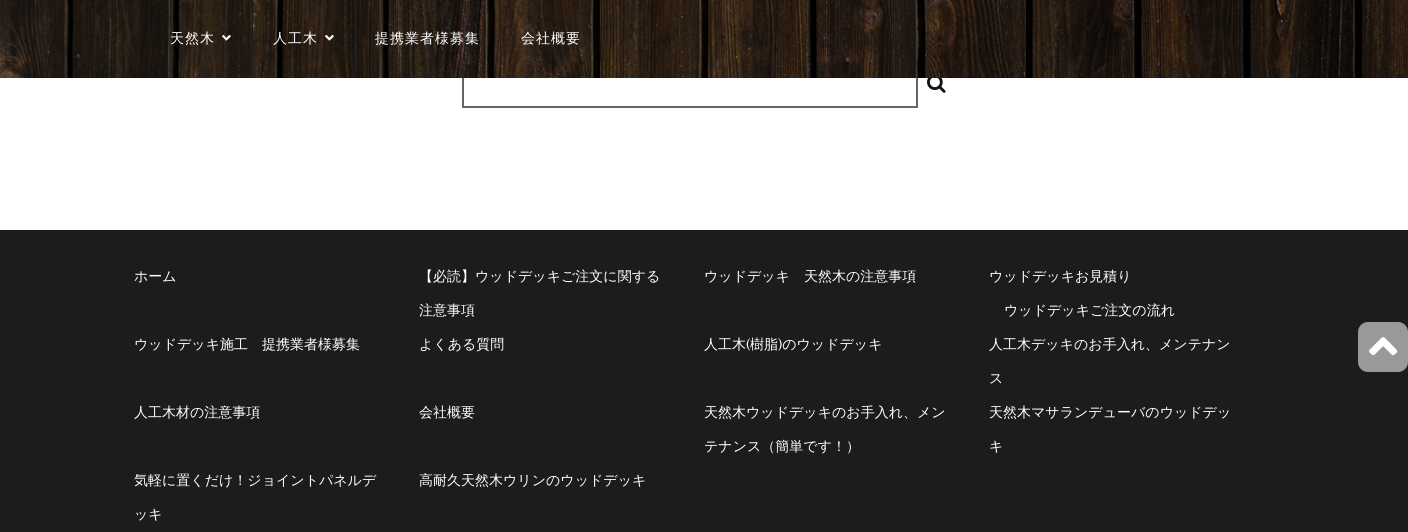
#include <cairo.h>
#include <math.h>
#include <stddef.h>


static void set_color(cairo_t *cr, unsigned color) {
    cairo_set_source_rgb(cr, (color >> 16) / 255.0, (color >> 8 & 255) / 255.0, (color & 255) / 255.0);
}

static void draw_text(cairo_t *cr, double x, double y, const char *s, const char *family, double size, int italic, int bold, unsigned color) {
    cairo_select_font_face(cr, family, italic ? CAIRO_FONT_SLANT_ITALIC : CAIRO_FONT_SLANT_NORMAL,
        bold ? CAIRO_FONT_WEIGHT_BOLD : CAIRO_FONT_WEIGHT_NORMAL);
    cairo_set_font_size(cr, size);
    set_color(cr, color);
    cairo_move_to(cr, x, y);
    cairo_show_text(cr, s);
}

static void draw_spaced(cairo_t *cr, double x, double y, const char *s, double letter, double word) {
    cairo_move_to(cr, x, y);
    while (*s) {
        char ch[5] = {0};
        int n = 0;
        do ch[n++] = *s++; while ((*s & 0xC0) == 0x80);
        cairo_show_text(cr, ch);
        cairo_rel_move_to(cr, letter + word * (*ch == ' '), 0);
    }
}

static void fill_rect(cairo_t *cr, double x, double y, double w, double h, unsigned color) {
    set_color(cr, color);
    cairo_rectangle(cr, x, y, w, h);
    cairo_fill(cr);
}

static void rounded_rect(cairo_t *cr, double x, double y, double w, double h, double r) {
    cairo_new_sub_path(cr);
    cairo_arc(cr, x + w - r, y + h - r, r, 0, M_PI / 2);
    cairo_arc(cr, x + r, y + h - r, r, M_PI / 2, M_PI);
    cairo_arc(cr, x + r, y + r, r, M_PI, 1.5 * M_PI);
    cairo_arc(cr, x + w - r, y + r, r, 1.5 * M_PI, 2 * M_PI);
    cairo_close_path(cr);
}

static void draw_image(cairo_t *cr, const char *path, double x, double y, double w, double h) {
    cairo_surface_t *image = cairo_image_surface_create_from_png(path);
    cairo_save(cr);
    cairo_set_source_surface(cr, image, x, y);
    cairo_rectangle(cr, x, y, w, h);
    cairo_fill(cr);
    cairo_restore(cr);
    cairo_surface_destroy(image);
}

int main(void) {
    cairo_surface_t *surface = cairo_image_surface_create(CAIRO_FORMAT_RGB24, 1408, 532);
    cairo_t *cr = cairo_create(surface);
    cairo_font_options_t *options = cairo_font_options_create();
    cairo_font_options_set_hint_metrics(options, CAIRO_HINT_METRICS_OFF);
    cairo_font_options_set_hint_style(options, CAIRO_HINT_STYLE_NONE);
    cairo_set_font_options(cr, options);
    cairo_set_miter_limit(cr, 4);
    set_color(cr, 0xFFFFFF);
    cairo_paint(cr);
    cairo_rectangle(cr, 463, 65, 454, 42);
    set_color(cr, 0x666666);
    cairo_stroke(cr);
    draw_image(cr, "assets/img1.png", 0, 0, 1408, 78);
    fill_rect(cr, 252, 0, 1, 78, 0x1C1C1C);
    fill_rect(cr, 149, 0, 1, 78, 0x1C1C1C);
    cairo_select_font_face(cr, "WenQuanYi Zen Hei Medium", CAIRO_FONT_SLANT_NORMAL, CAIRO_FONT_WEIGHT_NORMAL);
    cairo_set_font_size(cr, 14);
    set_color(cr, 0xFFFFFF);
    draw_spaced(cr, 170, 43, "天然木", 1, 0);
    draw_image(cr, "assets/img2.png", 222, 35, 9, 6);
    fill_rect(cr, 354, 0, 1, 78, 0x1C1C1C);
    set_color(cr, 0xFFFFFF);
    draw_spaced(cr, 273, 43, "人工木", 1, 0);
    draw_image(cr, "assets/img3.png", 325, 35, 9, 6);
    fill_rect(cr, 500, 0, 1, 78, 0x1C1C1C);
    set_color(cr, 0xFFFFFF);
    draw_spaced(cr, 375, 43, "提携業者様募集", 1, 0);
    fill_rect(cr, 601, 0, 1, 78, 0x1C1C1C);
    set_color(cr, 0xFFFFFF);
    draw_spaced(cr, 521, 43, "会社概要", 1, 0);
    draw_image(cr, "assets/img4.png", 927, 78, 19, 15);
    fill_rect(cr, 0, 230, 1408, 302, 0x1C1C1C);
    draw_text(cr, 134, 281, "ホーム", "WenQuanYi Zen Hei Medium", 14, 0, 0, 0xFFFFFF);
    draw_text(cr, 419, 281, "【必読】ウッドデッキご注文に関する", "WenQuanYi Zen Hei Medium", 14, 0, 0, 0xFFFFFF);
    draw_text(cr, 419, 315, "注意事項", "WenQuanYi Zen Hei Medium", 14, 0, 0, 0xFFFFFF);
    draw_text(cr, 704, 281, "ウッドデッキ　天然木の注意事項", "WenQuanYi Zen Hei Medium", 14, 0, 0, 0xFFFFFF);
    draw_text(cr, 989, 281, "ウッドデッキお見積り", "WenQuanYi Zen Hei Medium", 14, 0, 0, 0xFFFFFF);
    draw_text(cr, 1004, 315, "ウッドデッキご注文の流れ", "WenQuanYi Zen Hei Medium", 14, 0, 0, 0xFFFFFF);
    draw_text(cr, 134, 349, "ウッドデッキ施工　提携業者様募集", "WenQuanYi Zen Hei Medium", 14, 0, 0, 0xFFFFFF);
    draw_text(cr, 419, 349, "よくある質問", "WenQuanYi Zen Hei Medium", 14, 0, 0, 0xFFFFFF);
    draw_text(cr, 704, 349, "人工木", "WenQuanYi Zen Hei Medium", 14, 0, 0, 0xFFFFFF);
    draw_text(cr, 746, 349, "(", "Quattrocento Sans", 14, 0, 0, 0xFFFFFF);
    draw_text(cr, 750, 349, "樹脂 のウッドデッキ", "WenQuanYi Zen Hei Medium", 14, 0, 0, 0xFFFFFF);
    draw_text(cr, 778, 349, ")", "Quattrocento Sans", 14, 0, 0, 0xFFFFFF);
    draw_text(cr, 989, 349, "人工木デッキのお手入れ、メンテナン", "WenQuanYi Zen Hei Medium", 14, 0, 0, 0xFFFFFF);
    draw_text(cr, 989, 383, "ス", "WenQuanYi Zen Hei Medium", 14, 0, 0, 0xFFFFFF);
    draw_text(cr, 134, 417, "人工木材の注意事項", "WenQuanYi Zen Hei Medium", 14, 0, 0, 0xFFFFFF);
    draw_text(cr, 419, 417, "会社概要", "WenQuanYi Zen Hei Medium", 14, 0, 0, 0xFFFFFF);
    draw_text(cr, 704, 417, "天然木ウッドデッキのお手入れ、メン", "WenQuanYi Zen Hei Medium", 14, 0, 0, 0xFFFFFF);
    draw_text(cr, 704, 451, "テナンス（簡単です！）", "WenQuanYi Zen Hei Medium", 14, 0, 0, 0xFFFFFF);
    draw_text(cr, 989, 417, "天然木マサランデューバのウッドデッ", "WenQuanYi Zen Hei Medium", 14, 0, 0, 0xFFFFFF);
    draw_text(cr, 989, 451, "キ", "WenQuanYi Zen Hei Medium", 14, 0, 0, 0xFFFFFF);
    draw_text(cr, 134, 485, "気軽に置くだけ！ジョイントパネルデ", "WenQuanYi Zen Hei Medium", 14, 0, 0, 0xFFFFFF);
    draw_text(cr, 134, 519, "ッキ", "WenQuanYi Zen Hei Medium", 14, 0, 0, 0xFFFFFF);
    draw_text(cr, 419, 485, "高耐久天然木ウリンのウッドデッキ", "WenQuanYi Zen Hei Medium", 14, 0, 0, 0xFFFFFF);
    set_color(cr, 0x999999);
    rounded_rect(cr, 1358, 322, 50, 50, 10);
    cairo_fill(cr);
    draw_image(cr, "assets/img5.png", 1369, 337, 29, 19);
    cairo_surface_write_to_png(surface, "output.png");
    cairo_font_options_destroy(options);
    cairo_destroy(cr);
    cairo_surface_destroy(surface);
    return 0;
}
